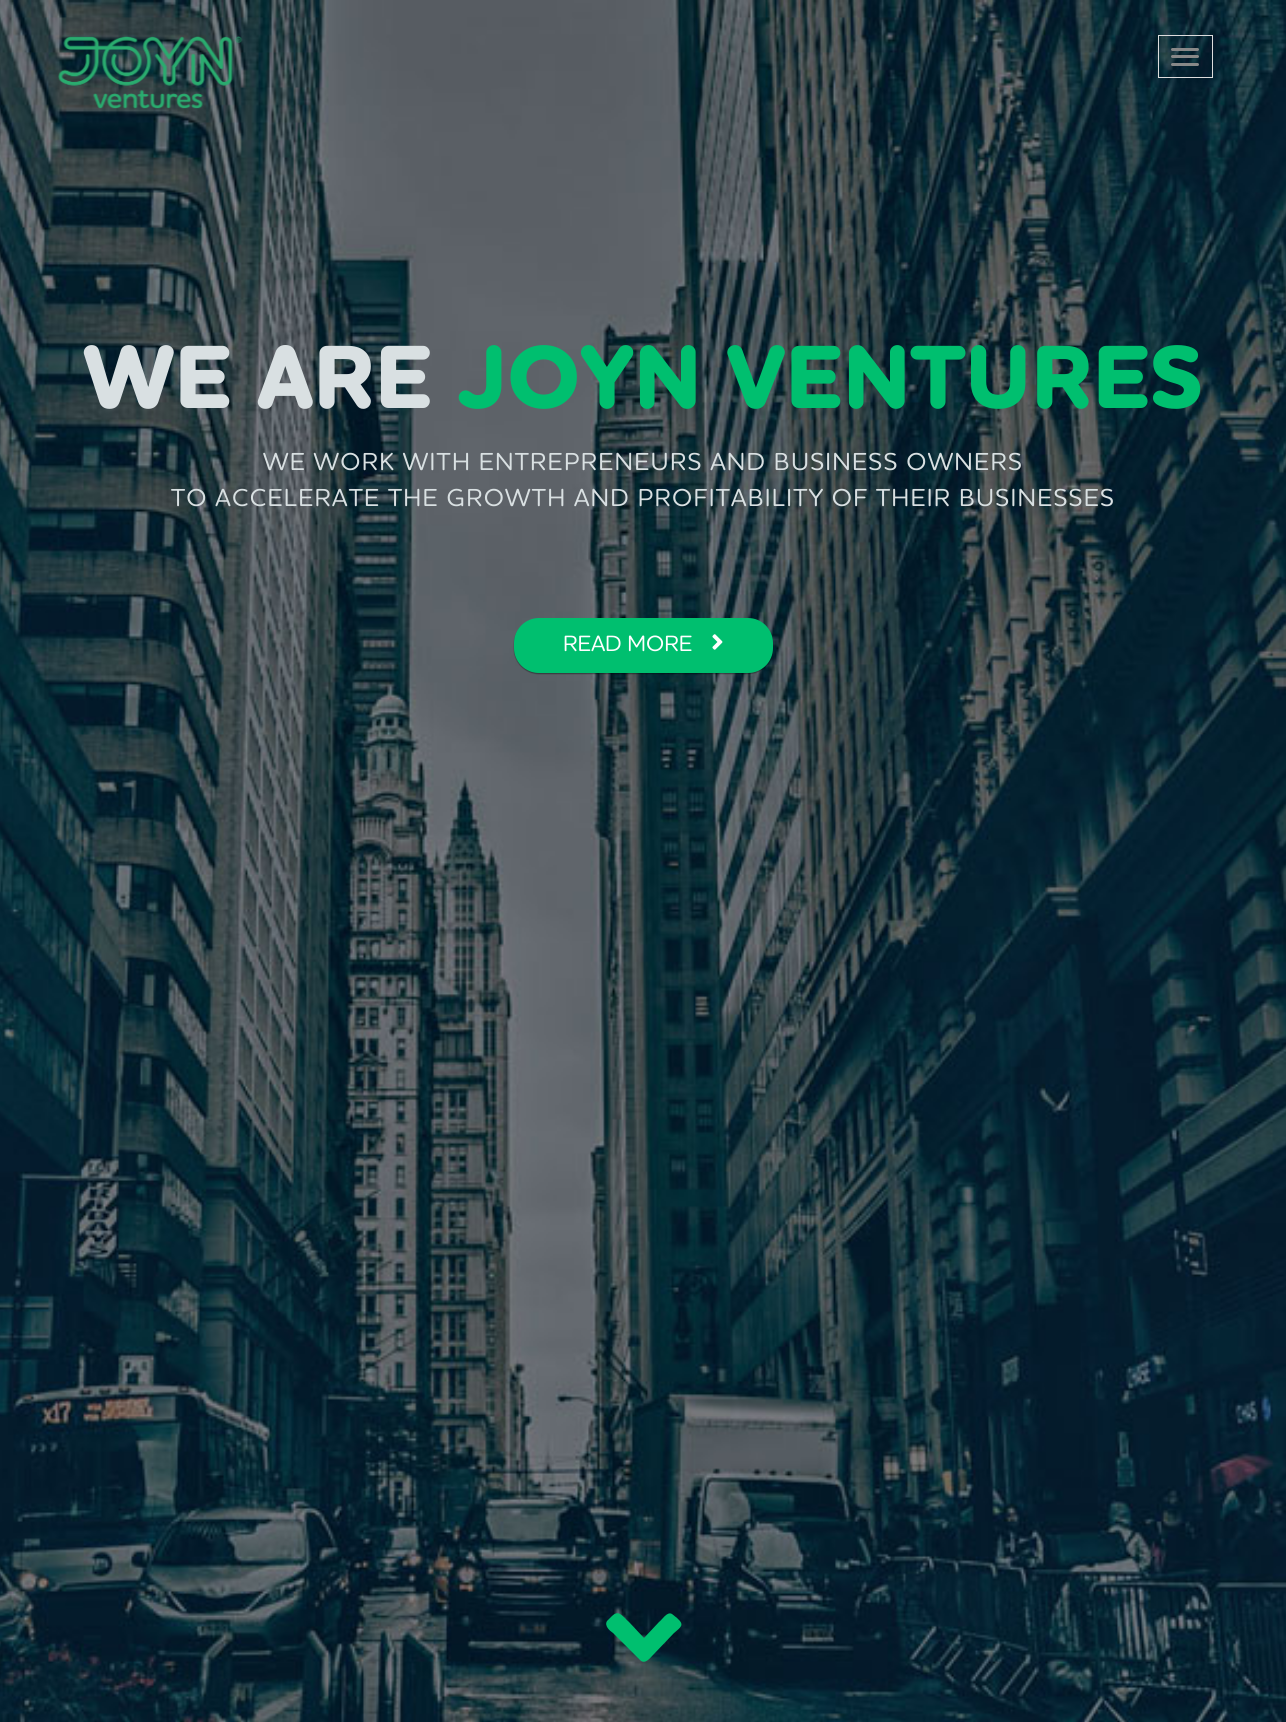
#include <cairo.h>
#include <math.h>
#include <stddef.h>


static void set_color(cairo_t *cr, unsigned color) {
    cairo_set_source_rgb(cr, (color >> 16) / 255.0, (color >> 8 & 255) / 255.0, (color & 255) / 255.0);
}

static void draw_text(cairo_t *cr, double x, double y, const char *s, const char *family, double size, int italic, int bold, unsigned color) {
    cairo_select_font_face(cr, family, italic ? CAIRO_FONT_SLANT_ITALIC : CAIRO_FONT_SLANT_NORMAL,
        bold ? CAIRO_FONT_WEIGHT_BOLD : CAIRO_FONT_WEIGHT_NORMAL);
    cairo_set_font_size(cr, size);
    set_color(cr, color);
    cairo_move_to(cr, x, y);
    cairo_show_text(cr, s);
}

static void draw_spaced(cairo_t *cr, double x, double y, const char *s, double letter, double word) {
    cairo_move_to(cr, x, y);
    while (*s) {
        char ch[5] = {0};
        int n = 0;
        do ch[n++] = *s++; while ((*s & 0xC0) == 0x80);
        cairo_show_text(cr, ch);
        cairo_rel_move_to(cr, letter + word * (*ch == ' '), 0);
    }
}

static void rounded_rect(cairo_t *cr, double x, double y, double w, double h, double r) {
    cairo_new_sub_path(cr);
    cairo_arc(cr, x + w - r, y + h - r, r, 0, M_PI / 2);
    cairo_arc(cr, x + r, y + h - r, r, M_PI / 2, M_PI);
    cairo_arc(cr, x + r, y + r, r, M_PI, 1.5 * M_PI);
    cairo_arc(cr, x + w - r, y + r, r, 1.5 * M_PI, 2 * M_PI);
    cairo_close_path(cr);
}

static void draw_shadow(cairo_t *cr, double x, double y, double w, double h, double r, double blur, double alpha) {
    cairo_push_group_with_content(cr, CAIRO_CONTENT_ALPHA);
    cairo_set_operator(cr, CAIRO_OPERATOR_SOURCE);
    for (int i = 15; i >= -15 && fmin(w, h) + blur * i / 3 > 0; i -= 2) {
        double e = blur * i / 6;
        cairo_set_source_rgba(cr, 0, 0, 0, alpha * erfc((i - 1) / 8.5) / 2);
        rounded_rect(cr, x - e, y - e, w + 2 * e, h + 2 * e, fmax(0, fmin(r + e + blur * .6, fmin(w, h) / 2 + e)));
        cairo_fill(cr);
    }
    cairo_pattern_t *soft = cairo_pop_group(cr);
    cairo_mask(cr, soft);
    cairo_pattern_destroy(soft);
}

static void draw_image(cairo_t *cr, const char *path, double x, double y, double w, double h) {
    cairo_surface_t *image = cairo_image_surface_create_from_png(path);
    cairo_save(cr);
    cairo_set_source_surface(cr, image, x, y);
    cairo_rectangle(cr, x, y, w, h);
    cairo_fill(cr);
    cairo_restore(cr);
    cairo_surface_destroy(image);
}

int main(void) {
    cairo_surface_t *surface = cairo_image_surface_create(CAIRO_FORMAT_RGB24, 1286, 1722);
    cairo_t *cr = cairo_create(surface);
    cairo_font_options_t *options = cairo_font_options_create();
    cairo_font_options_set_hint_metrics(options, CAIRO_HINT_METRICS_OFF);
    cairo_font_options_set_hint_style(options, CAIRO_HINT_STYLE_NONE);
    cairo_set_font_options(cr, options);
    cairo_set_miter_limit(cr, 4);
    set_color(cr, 0xFFFFFF);
    cairo_paint(cr);
    draw_image(cr, "assets/img2.png", 0, 0, 1286, 1722);
    draw_image(cr, "assets/img1.png", 58, 36, 185, 73);
    cairo_rectangle(cr, 1158.5, 35.5, 54, 42);
    set_color(cr, 0xDDDDDD);
    cairo_set_line_width(cr, 1);
    cairo_stroke(cr);
    set_color(cr, 0x888888);
    rounded_rect(cr, 1171, 48, 28, 3, 1.5);
    cairo_fill(cr);
    rounded_rect(cr, 1171, 55, 28, 3, 1.5);
    cairo_fill(cr);
    rounded_rect(cr, 1171, 63, 28, 3, 1.5);
    cairo_fill(cr);
    cairo_select_font_face(cr, "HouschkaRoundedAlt", CAIRO_FONT_SLANT_NORMAL, CAIRO_FONT_WEIGHT_BOLD);
    cairo_set_font_size(cr, 87.5);
    set_color(cr, 0xD9E0E2);
    draw_spaced(cr, 83, 408, "WE ARE", 2.5, 0);
    set_color(cr, 0x00BF6F);
    draw_spaced(cr, 458, 408, "JOYN VENTURES", 2.5, 0);
    cairo_select_font_face(cr, "HouschkaRoundedAlt", CAIRO_FONT_SLANT_NORMAL, CAIRO_FONT_WEIGHT_NORMAL);
    cairo_set_font_size(cr, 25);
    set_color(cr, 0xD9E0E2);
    draw_spaced(cr, 263, 470, "WE WORK WITH ENTREPRENEURS AND BUSINESS OWNERS", 1.25, 0);
    draw_spaced(cr, 171, 506, "TO ACCELERATE THE GROWTH AND PROFITABILITY OF THEIR BUSINESSES", 1.25, 0);
    set_color(cr, 0x000000);
    draw_shadow(cr, 514, 619, 259, 55, 25, 0.5, 0.4);
    set_color(cr, 0x00BF6F);
    rounded_rect(cr, 514, 618, 259, 55, 25);
    cairo_fill(cr);
    draw_text(cr, 563, 651, "READ MORE", "HouschkaRoundedAlt", 22.5, 0, 0, 0xFFFFFF);
    draw_image(cr, "assets/img3.png", 712, 634, 11, 16);
    set_color(cr, 0x00BF6F);
    cairo_new_path(cr);
    cairo_move_to(cr, 640, 1660);
    cairo_line_to(cr, 613, 1633);
    cairo_curve_to(cr, 610, 1631, 604, 1626, 607, 1621);
    cairo_line_to(cr, 612, 1616);
    cairo_curve_to(cr, 619, 1609, 623, 1617, 629, 1622);
    cairo_line_to(cr, 644, 1638);
    cairo_line_to(cr, 659, 1622);
    cairo_curve_to(cr, 662, 1620, 667, 1611, 672, 1614);
    cairo_line_to(cr, 677, 1618);
    cairo_curve_to(cr, 685, 1625, 681, 1627, 674, 1633);
    cairo_line_to(cr, 653, 1655);
    cairo_curve_to(cr, 650, 1658, 645, 1665, 640, 1660);
    cairo_close_path(cr);
    cairo_fill(cr);
    cairo_surface_write_to_png(surface, "output.png");
    cairo_font_options_destroy(options);
    cairo_destroy(cr);
    cairo_surface_destroy(surface);
    return 0;
}
